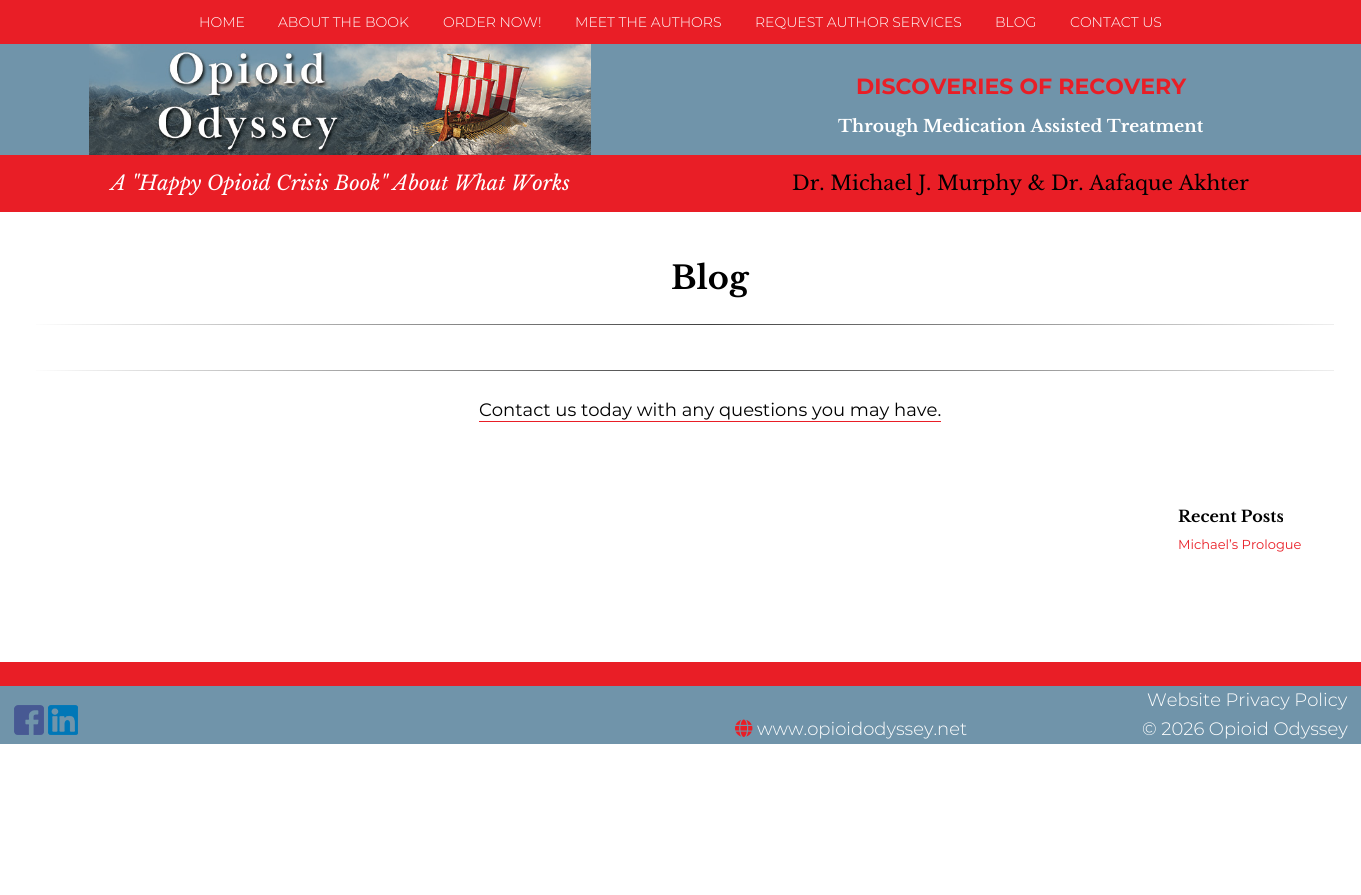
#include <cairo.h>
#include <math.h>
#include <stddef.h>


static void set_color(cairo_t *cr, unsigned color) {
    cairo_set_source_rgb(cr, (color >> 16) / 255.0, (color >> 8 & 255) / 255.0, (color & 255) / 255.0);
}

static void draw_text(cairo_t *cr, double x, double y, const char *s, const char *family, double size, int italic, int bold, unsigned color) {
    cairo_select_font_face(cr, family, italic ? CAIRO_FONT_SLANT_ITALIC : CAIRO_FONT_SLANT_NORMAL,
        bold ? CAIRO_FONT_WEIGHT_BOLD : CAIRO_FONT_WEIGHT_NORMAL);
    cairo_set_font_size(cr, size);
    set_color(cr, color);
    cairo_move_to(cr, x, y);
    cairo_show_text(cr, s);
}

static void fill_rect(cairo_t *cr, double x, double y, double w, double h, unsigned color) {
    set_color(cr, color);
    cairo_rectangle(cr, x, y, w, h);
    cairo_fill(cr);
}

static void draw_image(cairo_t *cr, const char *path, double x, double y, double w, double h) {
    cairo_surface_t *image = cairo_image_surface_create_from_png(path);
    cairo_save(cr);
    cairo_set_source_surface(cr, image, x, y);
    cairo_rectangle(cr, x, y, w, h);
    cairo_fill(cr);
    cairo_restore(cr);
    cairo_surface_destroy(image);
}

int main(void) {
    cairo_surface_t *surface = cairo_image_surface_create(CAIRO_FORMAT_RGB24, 1361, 895);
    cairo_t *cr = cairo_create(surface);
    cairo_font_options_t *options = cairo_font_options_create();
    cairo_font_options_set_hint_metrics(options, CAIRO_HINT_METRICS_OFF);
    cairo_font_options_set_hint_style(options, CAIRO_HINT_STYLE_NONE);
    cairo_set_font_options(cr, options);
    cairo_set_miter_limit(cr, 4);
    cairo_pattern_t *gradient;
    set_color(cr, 0xFFFFFF);
    cairo_paint(cr);
    fill_rect(cr, 0, 0, 1361, 44, 0xE91E26);
    draw_text(cr, 199, 27, "HOME", "Montserrat Light", 14, 0, 0, 0xFFFFFF);
    draw_text(cr, 278, 27, "ABOUT THE BOOK", "Montserrat Light", 14, 0, 0, 0xFFFFFF);
    draw_text(cr, 443, 27, "ORDER NOW!", "Montserrat Light", 14, 0, 0, 0xFFFFFF);
    draw_text(cr, 575, 27, "MEET THE AUTHORS", "Montserrat Light", 14, 0, 0, 0xFFFFFF);
    draw_text(cr, 755, 27, "REQUEST AUTHOR SERVICES", "Montserrat Light", 14, 0, 0, 0xFFFFFF);
    draw_text(cr, 995, 27, "BLOG", "Montserrat Light", 14, 0, 0, 0xFFFFFF);
    draw_text(cr, 1070, 27, "CONTACT US", "Montserrat Light", 14, 0, 0, 0xFFFFFF);
    fill_rect(cr, 0, 44, 1361, 111, 0x7094AA);
    draw_image(cr, "assets/img1.png", 89, 44, 502, 111);
    draw_text(cr, 856, 94, "DISCOVERIES OF RECOVERY", "Montserrat", 22, 0, 1, 0xE91E26);
    draw_text(cr, 838, 132, "Through Medication Assisted Treatment", "Libre Baskerville", 17, 0, 1, 0xFFFFFF);
    fill_rect(cr, 0, 155, 1361, 57, 0xE91E26);
    draw_text(cr, 111, 190, "A \"Happy Opioid Crisis Book\" About What Works", "Libre Baskerville", 20, 1, 0, 0xFFFFFF);
    draw_text(cr, 792, 190, "Dr. Michael J. Murphy & Dr. Aafaque Akhter", "Libre Baskerville", 20, 0, 0, 0x000000);
    draw_text(cr, 671, 289, "Blog", "Libre Baskerville", 32, 0, 1, 0x000000);
    gradient = cairo_pattern_create_linear(27, 325, 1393, 324);
    cairo_pattern_add_color_stop_rgba(gradient, 0, 1, 1, 1, 1);
    cairo_pattern_add_color_stop_rgba(gradient, 0.5, 0.251, 0.251, 0.251, 1);
    cairo_pattern_add_color_stop_rgba(gradient, 1, 1, 1, 1, 1);
    cairo_set_source(cr, gradient);
    cairo_pattern_destroy(gradient);
    cairo_rectangle(cr, 36, 324, 1298, 1);
    cairo_fill(cr);
    gradient = cairo_pattern_create_linear(27, 371, 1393, 370);
    cairo_pattern_add_color_stop_rgba(gradient, 0, 1, 1, 1, 1);
    cairo_pattern_add_color_stop_rgba(gradient, 0.5, 0.251, 0.251, 0.251, 1);
    cairo_pattern_add_color_stop_rgba(gradient, 1, 1, 1, 1, 1);
    cairo_set_source(cr, gradient);
    cairo_pattern_destroy(gradient);
    cairo_rectangle(cr, 36, 370, 1298, 1);
    cairo_fill(cr);
    draw_text(cr, 479, 416, "Contact us today with any questions you may have.", "Montserrat", 18, 0, 0, 0x000000);
    fill_rect(cr, 479, 421, 462, 1, 0xE91E26);
    draw_text(cr, 1178, 522, "Recent Posts", "Libre Baskerville", 16, 0, 1, 0x000000);
    draw_text(cr, 1178, 549, "Michael’s Prologue", "Montserrat", 13, 0, 0, 0xE91E26);
    fill_rect(cr, 0, 686, 1361, 58, 0x7094AA);
    fill_rect(cr, 0, 662, 1361, 24, 0xE91E26);
    draw_image(cr, "assets/img2.png", 14, 705, 30, 30);
    draw_image(cr, "assets/img3.png", 48, 705, 30, 30);
    draw_image(cr, "assets/img4.png", 735, 719, 18, 18);
    draw_text(cr, 757, 735, "www.opioidodyssey.net", "Montserrat Light", 18, 0, 0, 0xFFFFFF);
    draw_text(cr, 1147, 706, "Website Privacy Policy", "Montserrat Light", 18, 0, 0, 0xFFFFFF);
    draw_text(cr, 1142, 735, "© 2026 Opioid Odyssey", "Montserrat Light", 18, 0, 0, 0xFFFFFF);
    cairo_surface_write_to_png(surface, "output.png");
    cairo_font_options_destroy(options);
    cairo_destroy(cr);
    cairo_surface_destroy(surface);
    return 0;
}
